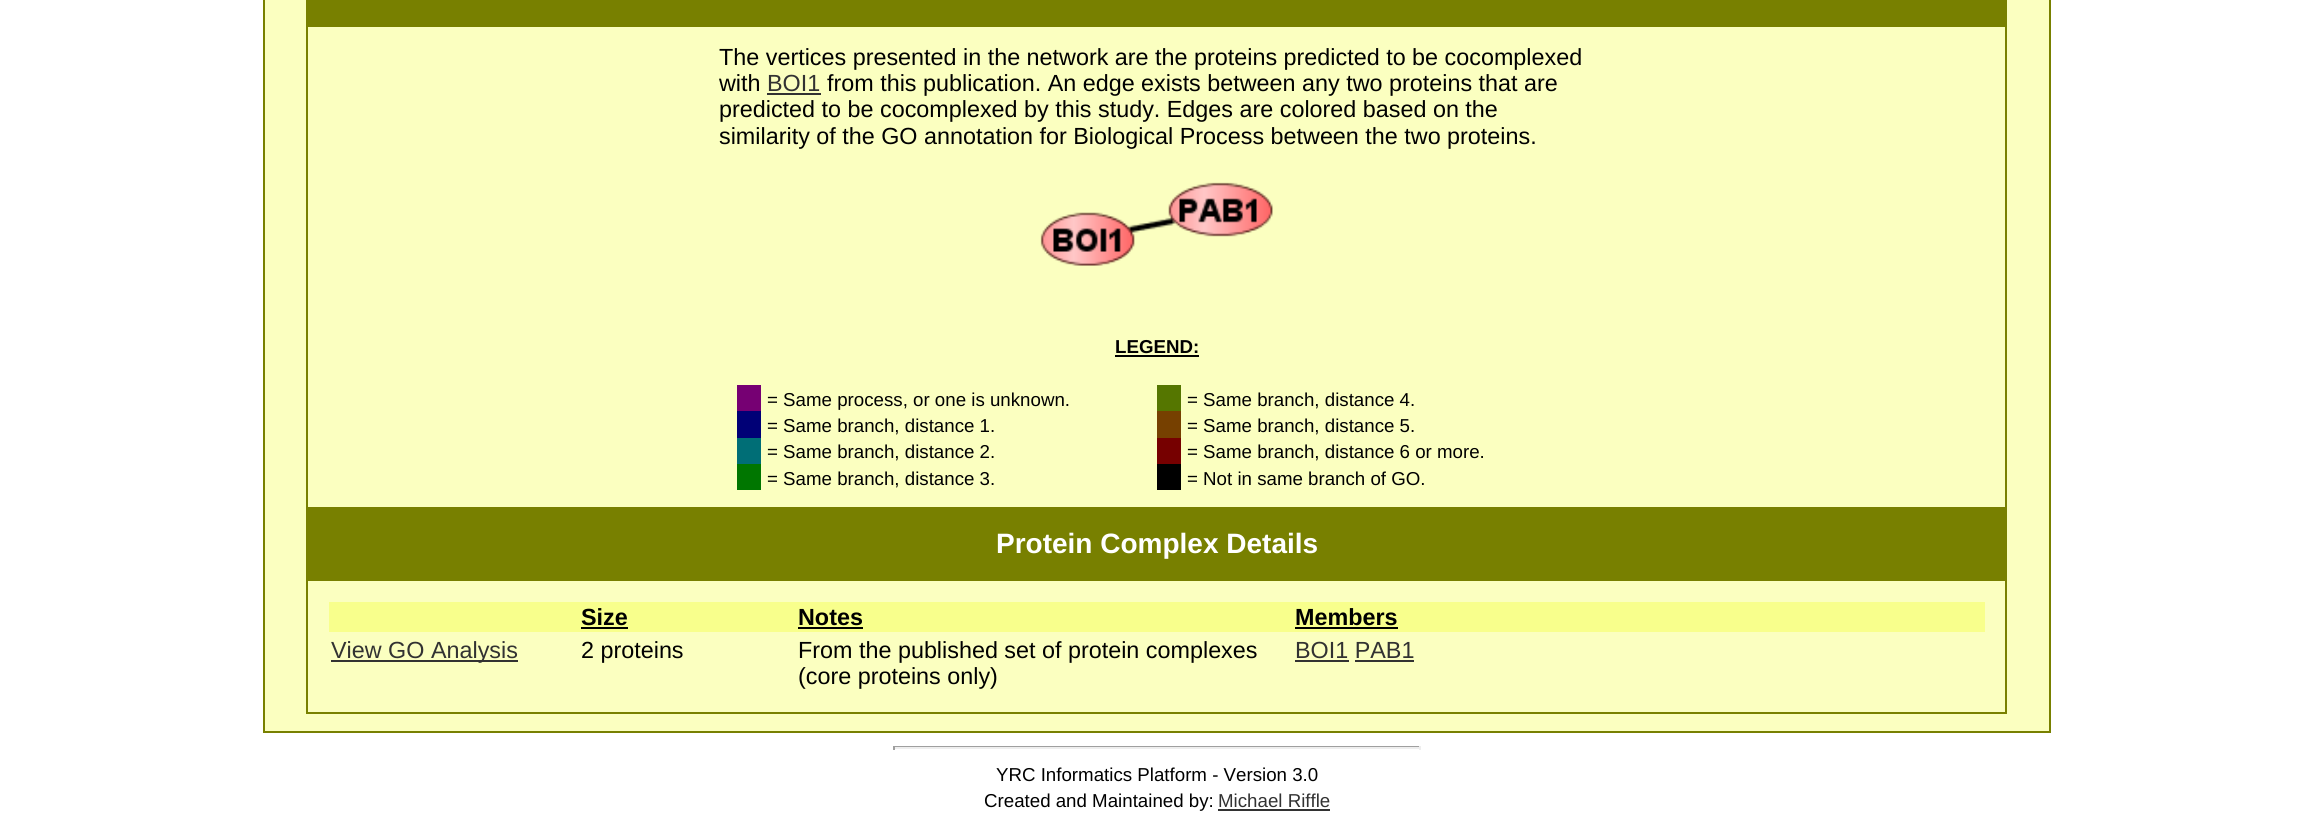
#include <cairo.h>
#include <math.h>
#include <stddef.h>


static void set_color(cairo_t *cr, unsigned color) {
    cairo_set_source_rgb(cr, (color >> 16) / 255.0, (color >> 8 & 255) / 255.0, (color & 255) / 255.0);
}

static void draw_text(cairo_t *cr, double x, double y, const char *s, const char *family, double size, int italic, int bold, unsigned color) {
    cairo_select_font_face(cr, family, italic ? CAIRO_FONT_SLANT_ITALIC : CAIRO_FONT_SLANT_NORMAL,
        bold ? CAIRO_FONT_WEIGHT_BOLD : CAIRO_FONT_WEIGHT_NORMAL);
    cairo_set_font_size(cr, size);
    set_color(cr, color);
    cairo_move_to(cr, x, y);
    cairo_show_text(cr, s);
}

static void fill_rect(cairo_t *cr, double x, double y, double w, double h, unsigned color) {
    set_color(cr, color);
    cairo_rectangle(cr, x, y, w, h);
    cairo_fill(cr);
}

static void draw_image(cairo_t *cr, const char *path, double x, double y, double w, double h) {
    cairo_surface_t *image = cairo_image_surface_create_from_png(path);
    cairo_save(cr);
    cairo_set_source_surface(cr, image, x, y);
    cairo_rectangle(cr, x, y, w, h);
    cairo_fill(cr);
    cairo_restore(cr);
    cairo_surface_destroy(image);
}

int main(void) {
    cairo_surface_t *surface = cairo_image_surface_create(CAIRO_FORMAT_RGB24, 2312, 820);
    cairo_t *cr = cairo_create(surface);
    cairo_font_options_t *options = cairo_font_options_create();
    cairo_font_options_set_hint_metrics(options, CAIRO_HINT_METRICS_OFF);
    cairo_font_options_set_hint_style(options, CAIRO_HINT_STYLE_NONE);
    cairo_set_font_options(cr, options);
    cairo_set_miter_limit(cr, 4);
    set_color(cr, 0xFFFFFF);
    cairo_paint(cr);
    set_color(cr, 0xFBFFC0);
    cairo_rectangle(cr, 264, -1, 1786, 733);
    cairo_fill_preserve(cr);
    set_color(cr, 0x788000);
    cairo_stroke(cr);
    fill_rect(cr, 306, 0, 1701, 25, 0x788000);
    cairo_rectangle(cr, 307, 26, 1699, 482);
    cairo_stroke(cr);
    draw_text(cr, 719, 65, "The vertices presented in the network are the proteins predicted to be cocomplexed", "Liberation Sans", 23.35, 0, 0, 0x000000);
    draw_text(cr, 719, 91, "with", "Liberation Sans", 23.35, 0, 0, 0x000000);
    draw_text(cr, 767, 91, "BOI1", "Liberation Sans", 23.35, 0, 0, 0x323232);
    fill_rect(cr, 767, 93, 54, 2, 0x323232);
    draw_text(cr, 827, 91, "from this publication. An edge exists between any two proteins that are", "Liberation Sans", 23.35, 0, 0, 0x000000);
    draw_text(cr, 719, 117, "predicted to be cocomplexed by this study. Edges are colored based on the", "Liberation Sans", 23.35, 0, 0, 0x000000);
    draw_text(cr, 719, 144, "similarity of the GO annotation for Biological Process between the two proteins.", "Liberation Sans", 23.35, 0, 0, 0x000000);
    draw_image(cr, "assets/img1.png", 1040, 182, 233, 84);
    draw_text(cr, 1115, 353, "LEGEND:", "Liberation Sans", 18.7, 0, 1, 0x000000);
    fill_rect(cr, 1115, 355, 84, 2, 0x000000);
    fill_rect(cr, 737, 385, 24, 26, 0x760073);
    draw_text(cr, 767, 406, "= Same process, or one is unknown.", "Liberation Sans", 18.7, 0, 0, 0x000000);
    fill_rect(cr, 1157, 385, 24, 26, 0x557600);
    draw_text(cr, 1187, 406, "= Same branch, distance 4.", "Liberation Sans", 18.7, 0, 0, 0x000000);
    fill_rect(cr, 737, 411, 24, 27, 0x000076);
    draw_text(cr, 767, 432, "= Same branch, distance 1.", "Liberation Sans", 18.7, 0, 0, 0x000000);
    fill_rect(cr, 1157, 411, 24, 27, 0x764000);
    draw_text(cr, 1187, 432, "= Same branch, distance 5.", "Liberation Sans", 18.7, 0, 0, 0x000000);
    fill_rect(cr, 737, 438, 24, 26, 0x006E76);
    draw_text(cr, 767, 458, "= Same branch, distance 2.", "Liberation Sans", 18.7, 0, 0, 0x000000);
    fill_rect(cr, 1157, 438, 24, 26, 0x760000);
    draw_text(cr, 1187, 458, "= Same branch, distance 6 or more.", "Liberation Sans", 18.7, 0, 0, 0x000000);
    fill_rect(cr, 737, 464, 24, 26, 0x007600);
    draw_text(cr, 767, 485, "= Same branch, distance 3.", "Liberation Sans", 18.7, 0, 0, 0x000000);
    fill_rect(cr, 1157, 464, 24, 26, 0x000000);
    draw_text(cr, 1187, 485, "= Not in same branch of GO.", "Liberation Sans", 18.7, 0, 0, 0x000000);
    fill_rect(cr, 306, 509, 1701, 70, 0x788000);
    draw_text(cr, 996, 553, "Protein Complex Details", "Liberation Sans", 28, 0, 1, 0xFFFFFF);
    cairo_rectangle(cr, 307, 580, 1699, 133);
    set_color(cr, 0x788000);
    cairo_stroke(cr);
    fill_rect(cr, 329, 602, 1656, 30, 0xF8FF8C);
    draw_text(cr, 581, 625, "Size", "Liberation Sans", 23.35, 0, 1, 0x000000);
    fill_rect(cr, 581, 627, 47, 2, 0x000000);
    draw_text(cr, 798, 625, "Notes", "Liberation Sans", 23.35, 0, 1, 0x000000);
    fill_rect(cr, 798, 627, 65, 2, 0x000000);
    draw_text(cr, 1295, 625, "Members", "Liberation Sans", 23.35, 0, 1, 0x000000);
    fill_rect(cr, 1295, 627, 103, 2, 0x000000);
    fill_rect(cr, 331, 660, 187, 2, 0x323232);
    draw_text(cr, 331, 658, "View GO Analysis", "Liberation Sans", 23.35, 0, 0, 0x323232);
    draw_text(cr, 581, 658, "2 proteins", "Liberation Sans", 23.35, 0, 0, 0x000000);
    draw_text(cr, 798, 658, "From the published set of protein complexes", "Liberation Sans", 23.35, 0, 0, 0x000000);
    draw_text(cr, 798, 684, "(core proteins only)", "Liberation Sans", 23.35, 0, 0, 0x000000);
    draw_text(cr, 1295, 658, "BOI1 PAB1", "Liberation Sans", 23.35, 0, 0, 0x323232);
    fill_rect(cr, 1295, 660, 54, 2, 0x323232);
    fill_rect(cr, 1355, 660, 59, 2, 0x323232);
    fill_rect(cr, 893, 746, 528, 1, 0x9F9F9F);
    fill_rect(cr, 1419, 746, 2, 4, 0xEEEEEE);
    fill_rect(cr, 893, 747, 528, 2, 0xEEEEEE);
    fill_rect(cr, 893, 746, 2, 4, 0x9F9F9F);
    draw_text(cr, 996, 781, "YRC Informatics Platform - Version 3.0", "Liberation Sans", 18.7, 0, 0, 0x000000);
    draw_text(cr, 984, 807, "Created and Maintained by:", "Liberation Sans", 18.7, 0, 0, 0x000000);
    draw_text(cr, 1218, 807, "Michael Riffle", "Liberation Sans", 18.7, 0, 0, 0x323232);
    fill_rect(cr, 1218, 809, 112, 2, 0x323232);
    cairo_surface_write_to_png(surface, "output.png");
    cairo_font_options_destroy(options);
    cairo_destroy(cr);
    cairo_surface_destroy(surface);
    return 0;
}
